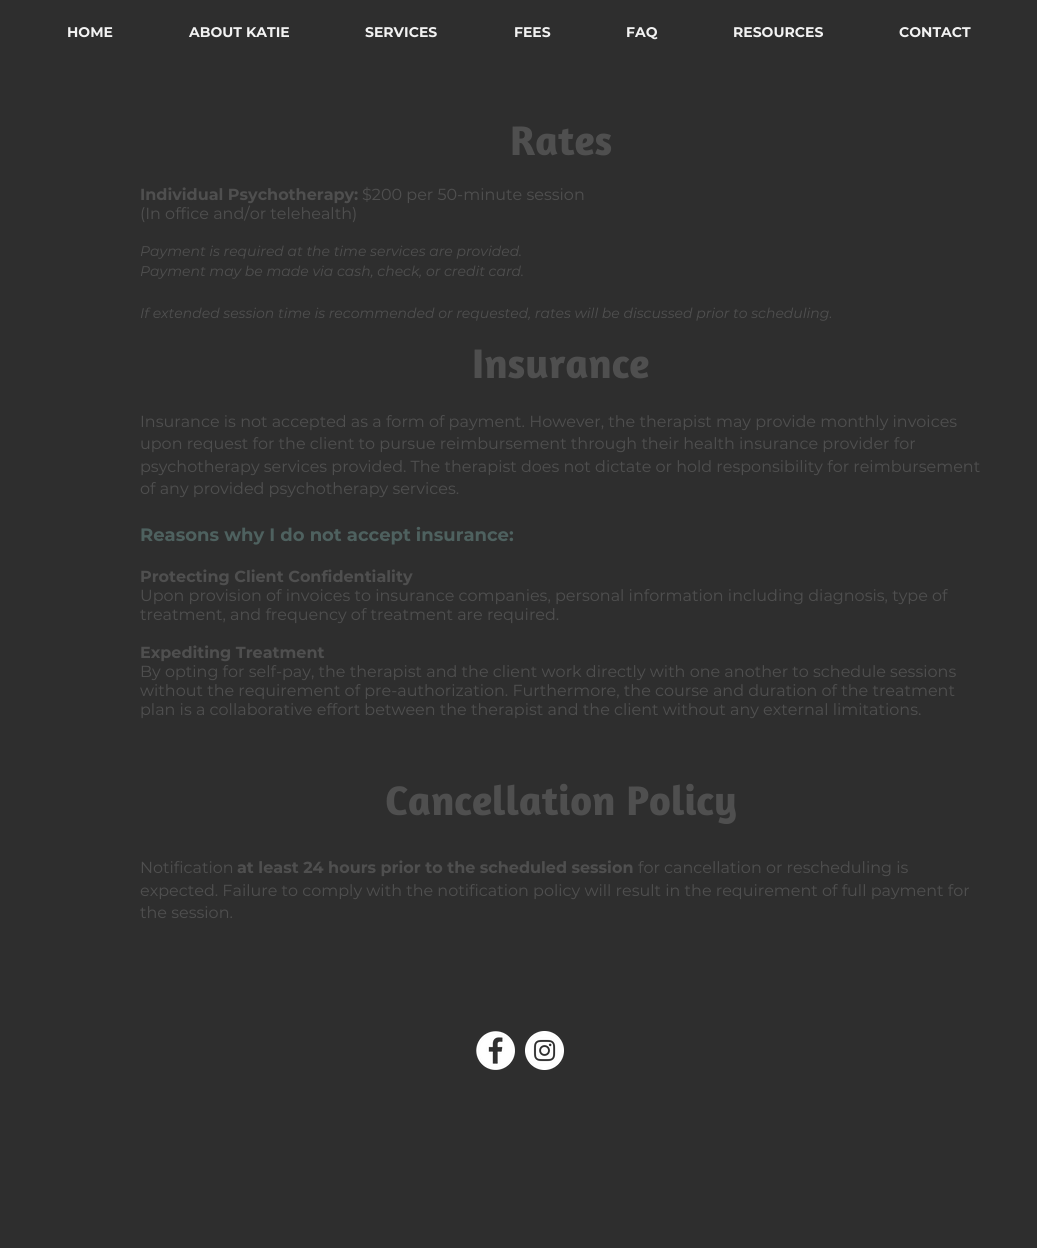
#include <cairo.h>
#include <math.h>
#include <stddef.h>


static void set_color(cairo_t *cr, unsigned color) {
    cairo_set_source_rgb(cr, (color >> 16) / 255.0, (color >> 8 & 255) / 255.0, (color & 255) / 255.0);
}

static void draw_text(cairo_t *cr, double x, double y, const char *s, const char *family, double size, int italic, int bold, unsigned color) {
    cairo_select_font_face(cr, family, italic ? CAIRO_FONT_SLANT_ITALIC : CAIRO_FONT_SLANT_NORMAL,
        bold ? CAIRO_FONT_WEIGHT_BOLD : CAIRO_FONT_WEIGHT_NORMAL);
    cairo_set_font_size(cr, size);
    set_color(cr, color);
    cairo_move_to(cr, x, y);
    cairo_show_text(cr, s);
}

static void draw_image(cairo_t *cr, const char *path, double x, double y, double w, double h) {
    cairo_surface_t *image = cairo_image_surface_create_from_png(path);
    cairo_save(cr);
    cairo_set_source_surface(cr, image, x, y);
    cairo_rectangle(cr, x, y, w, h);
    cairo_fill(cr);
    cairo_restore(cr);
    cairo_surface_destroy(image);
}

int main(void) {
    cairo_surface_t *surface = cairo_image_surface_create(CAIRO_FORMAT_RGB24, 1037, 1248);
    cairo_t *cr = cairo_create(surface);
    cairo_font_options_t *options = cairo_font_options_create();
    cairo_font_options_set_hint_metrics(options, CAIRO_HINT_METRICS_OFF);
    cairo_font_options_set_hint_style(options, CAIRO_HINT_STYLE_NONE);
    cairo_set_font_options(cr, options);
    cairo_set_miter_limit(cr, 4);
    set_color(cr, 0x2E2E2E);
    cairo_paint(cr);
    draw_text(cr, 67, 37, "HOME", "Montserrat", 14, 0, 1, 0xF2F2F2);
    draw_text(cr, 189, 37, "ABOUT KATIE", "Montserrat", 14, 0, 1, 0xF2F2F2);
    draw_text(cr, 365, 37, "SERVICES", "Montserrat", 14, 0, 1, 0xF2F2F2);
    draw_text(cr, 514, 37, "FEES", "Montserrat", 14, 0, 1, 0xF2F2F2);
    draw_text(cr, 626, 37, "FAQ", "Montserrat", 14, 0, 1, 0xF2F2F2);
    draw_text(cr, 733, 37, "RESOURCES", "Montserrat", 14, 0, 1, 0xF2F2F2);
    draw_text(cr, 899, 37, "CONTACT", "Montserrat", 14, 0, 1, 0xF2F2F2);
    draw_text(cr, 510, 155, "Rates", "Amaranth", 42, 0, 1, 0x4F4F4F);
    draw_text(cr, 140, 200, "Individual Psychotherapy:", "Montserrat", 16, 0, 1, 0x4F4F4F);
    draw_text(cr, 362, 200, "$200 per 50-minute session", "Montserrat", 16, 0, 0, 0x4F4F4F);
    draw_text(cr, 140, 219, "(In office and/or telehealth)", "Montserrat", 16, 0, 0, 0x4F4F4F);
    draw_text(cr, 140, 256, "Payment is required at the time services are provided.", "Montserrat", 14, 1, 0, 0x4F4F4F);
    draw_text(cr, 140, 276, "Payment may be made via cash, check, or credit card.", "Montserrat", 14, 1, 0, 0x4F4F4F);
    draw_text(cr, 140, 318, "If extended session time is recommended or requested, rates will be discussed prior to scheduling.", "Montserrat", 14, 1, 0, 0x4F4F4F);
    draw_text(cr, 472, 378, "Insurance", "Amaranth", 42, 0, 1, 0x4F4F4F);
    draw_text(cr, 140, 427, "Insurance is not accepted as a form of payment. However, the therapist may provide monthly invoices", "Montserrat", 16, 0, 0, 0x4F4F4F);
    draw_text(cr, 140, 449, "upon request for the client to pursue reimbursement through their health insurance provider for", "Montserrat", 16, 0, 0, 0x4F4F4F);
    draw_text(cr, 140, 472, "psychotherapy services provided. The therapist does not dictate or hold responsibility for reimbursement", "Montserrat", 16, 0, 0, 0x4F4F4F);
    draw_text(cr, 140, 494, "of any provided psychotherapy services.", "Montserrat", 16, 0, 0, 0x4F4F4F);
    draw_text(cr, 140, 541, "Reasons why I do not accept insurance:", "Montserrat", 18, 0, 1, 0x4E615F);
    draw_text(cr, 140, 582, "Protecting Client Confidentiality", "Montserrat", 16, 0, 1, 0x4F4F4F);
    draw_text(cr, 140, 601, "Upon provision of invoices to insurance companies, personal information including diagnosis, type of", "Montserrat", 16, 0, 0, 0x4F4F4F);
    draw_text(cr, 140, 620, "treatment, and frequency of treatment are required.", "Montserrat", 16, 0, 0, 0x4F4F4F);
    draw_text(cr, 140, 658, "Expediting Treatment", "Montserrat", 16, 0, 1, 0x4F4F4F);
    draw_text(cr, 140, 677, "By opting for self-pay, the therapist and the client work directly with one another to schedule sessions", "Montserrat", 16, 0, 0, 0x4F4F4F);
    draw_text(cr, 140, 696, "without the requirement of pre-authorization. Furthermore, the course and duration of the treatment", "Montserrat", 16, 0, 0, 0x4F4F4F);
    draw_text(cr, 140, 715, "plan is a collaborative effort between the therapist and the client without any external limitations.", "Montserrat", 16, 0, 0, 0x4F4F4F);
    draw_text(cr, 385, 815, "Cancellation Policy", "Amaranth", 42, 0, 1, 0x4F4F4F);
    draw_text(cr, 140, 873, "Notification", "Montserrat", 16, 0, 0, 0x4F4F4F);
    draw_text(cr, 237, 873, "at least 24 hours prior to the scheduled session", "Montserrat", 16, 0, 1, 0x4F4F4F);
    draw_text(cr, 638, 873, "for cancellation or rescheduling is", "Montserrat", 16, 0, 0, 0x4F4F4F);
    draw_text(cr, 140, 896, "expected. Failure to comply with the notification policy will result in the requirement of full payment for", "Montserrat", 16, 0, 0, 0x4F4F4F);
    draw_text(cr, 140, 918, "the session.", "Montserrat", 16, 0, 0, 0x4F4F4F);
    draw_image(cr, "assets/img1.png", 476, 1031, 39, 39);
    draw_image(cr, "assets/img2.png", 525, 1031, 39, 39);
    cairo_surface_write_to_png(surface, "output.png");
    cairo_font_options_destroy(options);
    cairo_destroy(cr);
    cairo_surface_destroy(surface);
    return 0;
}
